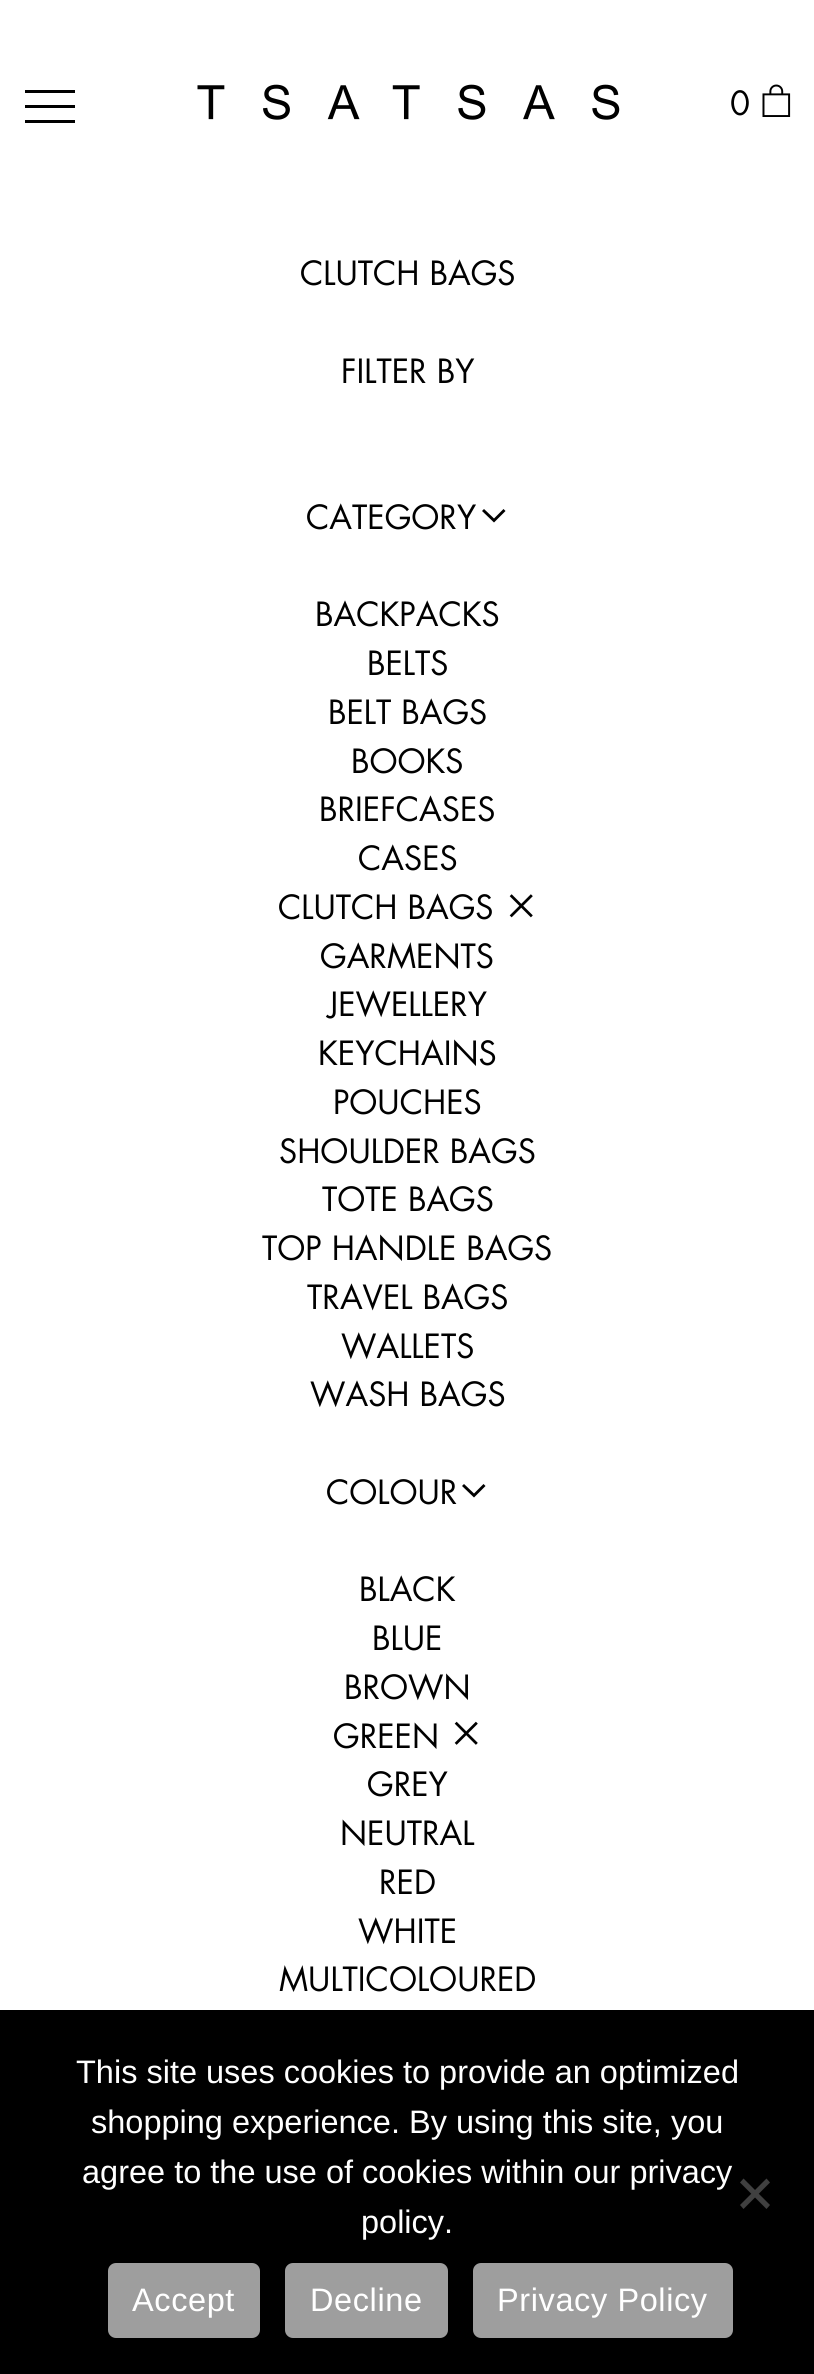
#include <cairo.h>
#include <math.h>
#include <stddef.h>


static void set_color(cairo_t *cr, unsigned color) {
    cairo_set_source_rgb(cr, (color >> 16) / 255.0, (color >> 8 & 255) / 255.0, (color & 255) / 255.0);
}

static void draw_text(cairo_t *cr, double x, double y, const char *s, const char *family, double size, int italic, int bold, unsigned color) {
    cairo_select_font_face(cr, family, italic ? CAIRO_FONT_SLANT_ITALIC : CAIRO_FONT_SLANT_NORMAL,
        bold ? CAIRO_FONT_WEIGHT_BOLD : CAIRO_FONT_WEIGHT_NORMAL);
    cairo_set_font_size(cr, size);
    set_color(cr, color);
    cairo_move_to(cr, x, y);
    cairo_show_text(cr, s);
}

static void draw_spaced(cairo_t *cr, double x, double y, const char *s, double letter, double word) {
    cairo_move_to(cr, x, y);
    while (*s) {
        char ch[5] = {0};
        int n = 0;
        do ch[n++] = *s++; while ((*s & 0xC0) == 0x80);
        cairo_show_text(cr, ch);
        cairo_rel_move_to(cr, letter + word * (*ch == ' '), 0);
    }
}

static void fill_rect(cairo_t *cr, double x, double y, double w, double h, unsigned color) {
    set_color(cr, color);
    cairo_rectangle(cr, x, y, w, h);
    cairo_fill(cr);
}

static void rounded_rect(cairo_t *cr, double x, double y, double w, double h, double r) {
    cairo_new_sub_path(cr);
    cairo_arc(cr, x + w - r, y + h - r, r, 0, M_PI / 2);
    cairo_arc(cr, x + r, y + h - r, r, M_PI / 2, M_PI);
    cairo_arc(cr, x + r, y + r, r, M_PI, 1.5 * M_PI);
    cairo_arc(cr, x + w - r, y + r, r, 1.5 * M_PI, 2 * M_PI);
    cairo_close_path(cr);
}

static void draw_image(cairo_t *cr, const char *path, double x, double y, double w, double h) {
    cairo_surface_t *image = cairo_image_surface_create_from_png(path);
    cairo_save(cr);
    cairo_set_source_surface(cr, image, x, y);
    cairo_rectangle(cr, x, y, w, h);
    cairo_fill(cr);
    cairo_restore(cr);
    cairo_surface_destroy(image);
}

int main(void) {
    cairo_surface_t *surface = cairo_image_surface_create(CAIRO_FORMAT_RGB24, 814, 2374);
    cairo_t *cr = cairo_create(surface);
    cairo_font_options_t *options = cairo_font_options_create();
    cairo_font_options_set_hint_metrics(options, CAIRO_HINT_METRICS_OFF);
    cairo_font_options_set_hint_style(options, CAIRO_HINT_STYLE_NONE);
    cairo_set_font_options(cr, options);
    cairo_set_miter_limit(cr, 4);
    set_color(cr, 0xFFFFFF);
    cairo_paint(cr);
    fill_rect(cr, 25, 105, 50, 3, 0x000000);
    fill_rect(cr, 25, 90, 50, 3, 0x000000);
    fill_rect(cr, 25, 120, 50, 3, 0x000000);
    draw_image(cr, "assets/img1.png", 197, 84, 423, 36);
    draw_text(cr, 730, 115, "0", "Futura", 32.5, 0, 0, 0x000000);
    draw_image(cr, "assets/img2.png", 762, 84, 29, 33);
    draw_text(cr, 300, 285, "CLUTCH BAGS", "Futura", 32.5, 0, 0, 0x000000);
    draw_text(cr, 341, 383, "FILTER BY", "Futura", 32.5, 0, 0, 0x000000);
    draw_text(cr, 306, 529, "CATEGORY", "Futura", 32.5, 0, 0, 0x000000);
    cairo_new_path(cr);
    cairo_move_to(cr, 494, 522.5);
    cairo_line_to(cr, 505.5, 511);
    cairo_line_to(cr, 503.5, 509);
    cairo_line_to(cr, 494, 518.5);
    cairo_line_to(cr, 484, 509);
    cairo_line_to(cr, 482, 511);
    cairo_close_path(cr);
    cairo_fill(cr);
    draw_text(cr, 315, 626, "BACKPACKS", "Futura", 32.5, 0, 0, 0x000000);
    draw_text(cr, 367, 675, "BELTS", "Futura", 32.5, 0, 0, 0x000000);
    draw_text(cr, 328, 724, "BELT BAGS", "Futura", 32.5, 0, 0, 0x000000);
    draw_text(cr, 351, 773, "BOOKS", "Futura", 32.5, 0, 0, 0x000000);
    draw_text(cr, 319, 821, "BRIEFCASES", "Futura", 32.5, 0, 0, 0x000000);
    draw_text(cr, 358, 870, "CASES", "Futura", 32.5, 0, 0, 0x000000);
    draw_text(cr, 278, 919, "CLUTCH BAGS", "Futura", 32.5, 0, 0, 0x000000);
    draw_image(cr, "assets/img3.png", 509, 894, 24, 24);
    draw_text(cr, 320, 968, "GARMENTS", "Futura", 32.5, 0, 0, 0x000000);
    draw_text(cr, 328, 1016, "JEWELLERY", "Futura", 32.5, 0, 0, 0x000000);
    draw_text(cr, 318, 1065, "KEYCHAINS", "Futura", 32.5, 0, 0, 0x000000);
    draw_text(cr, 333, 1114, "POUCHES", "Futura", 32.5, 0, 0, 0x000000);
    draw_text(cr, 279, 1163, "SHOULDER BAGS", "Futura", 32.5, 0, 0, 0x000000);
    draw_text(cr, 322, 1211, "TOTE BAGS", "Futura", 32.5, 0, 0, 0x000000);
    draw_text(cr, 262, 1260, "TOP HANDLE BAGS", "Futura", 32.5, 0, 0, 0x000000);
    draw_text(cr, 307, 1309, "TRAVEL BAGS", "Futura", 32.5, 0, 0, 0x000000);
    draw_text(cr, 341, 1358, "WALLETS", "Futura", 32.5, 0, 0, 0x000000);
    draw_text(cr, 310, 1406, "WASH BAGS", "Futura", 32.5, 0, 0, 0x000000);
    draw_text(cr, 326, 1504, "COLOUR", "Futura", 32.5, 0, 0, 0x000000);
    cairo_new_path(cr);
    cairo_move_to(cr, 474, 1497.5);
    cairo_line_to(cr, 485.5, 1486);
    cairo_line_to(cr, 483.5, 1484);
    cairo_line_to(cr, 474, 1493.5);
    cairo_line_to(cr, 464, 1484);
    cairo_line_to(cr, 462, 1486);
    cairo_close_path(cr);
    cairo_fill(cr);
    draw_text(cr, 359, 1601, "BLACK", "Futura", 32.5, 0, 0, 0x000000);
    draw_text(cr, 372, 1650, "BLUE", "Futura", 32.5, 0, 0, 0x000000);
    draw_text(cr, 344, 1699, "BROWN", "Futura", 32.5, 0, 0, 0x000000);
    draw_text(cr, 333, 1748, "GREEN", "Futura", 32.5, 0, 0, 0x000000);
    draw_image(cr, "assets/img4.png", 454, 1721, 24, 24);
    draw_text(cr, 367, 1796, "GREY", "Futura", 32.5, 0, 0, 0x000000);
    draw_text(cr, 340, 1845, "NEUTRAL", "Futura", 32.5, 0, 0, 0x000000);
    draw_text(cr, 379, 1894, "RED", "Futura", 32.5, 0, 0, 0x000000);
    draw_text(cr, 358, 1943, "WHITE", "Futura", 32.5, 0, 0, 0x000000);
    draw_text(cr, 279, 1991, "MULTICOLOURED", "Futura", 32.5, 0, 0, 0x000000);
    fill_rect(cr, 0, 2010, 814, 364, 0x000000);
    draw_text(cr, 76, 2083, "This site uses cookies to provide an optimized", "Liberation Sans", 32.5, 0, 0, 0xFFFFFF);
    draw_text(cr, 91, 2133, "shopping experience. By using this site, you", "Liberation Sans", 32.5, 0, 0, 0xFFFFFF);
    draw_text(cr, 82, 2183, "agree to the use of cookies within our privacy", "Liberation Sans", 32.5, 0, 0, 0xFFFFFF);
    draw_text(cr, 361, 2233, "policy.", "Liberation Sans", 32.5, 0, 0, 0xFFFFFF);
    set_color(cr, 0x404040);
    cairo_new_path(cr);
    cairo_move_to(cr, 766.5, 2178.5);
    cairo_line_to(cr, 770, 2182.5);
    cairo_line_to(cr, 743.5, 2209);
    cairo_line_to(cr, 740, 2205);
    cairo_close_path(cr);
    cairo_fill(cr);
    cairo_new_path(cr);
    cairo_move_to(cr, 740, 2182.5);
    cairo_line_to(cr, 743.5, 2178.5);
    cairo_line_to(cr, 770, 2205);
    cairo_line_to(cr, 766.5, 2209);
    cairo_close_path(cr);
    cairo_fill(cr);
    set_color(cr, 0x9E9E9E);
    rounded_rect(cr, 108, 2263, 152, 75, 8);
    cairo_fill(cr);
    set_color(cr, 0xFFFFFF);
    draw_spaced(cr, 132, 2311, "Accept", 0.6, 0);
    set_color(cr, 0x9E9E9E);
    rounded_rect(cr, 285, 2263, 163, 75, 8);
    cairo_fill(cr);
    set_color(cr, 0xFFFFFF);
    draw_spaced(cr, 310, 2311, "Decline", 0.6, 0);
    set_color(cr, 0x9E9E9E);
    rounded_rect(cr, 473, 2263, 260, 75, 8);
    cairo_fill(cr);
    set_color(cr, 0xFFFFFF);
    draw_spaced(cr, 497, 2311, "Privacy Policy", 0.6, 0);
    cairo_surface_write_to_png(surface, "output.png");
    cairo_font_options_destroy(options);
    cairo_destroy(cr);
    cairo_surface_destroy(surface);
    return 0;
}
